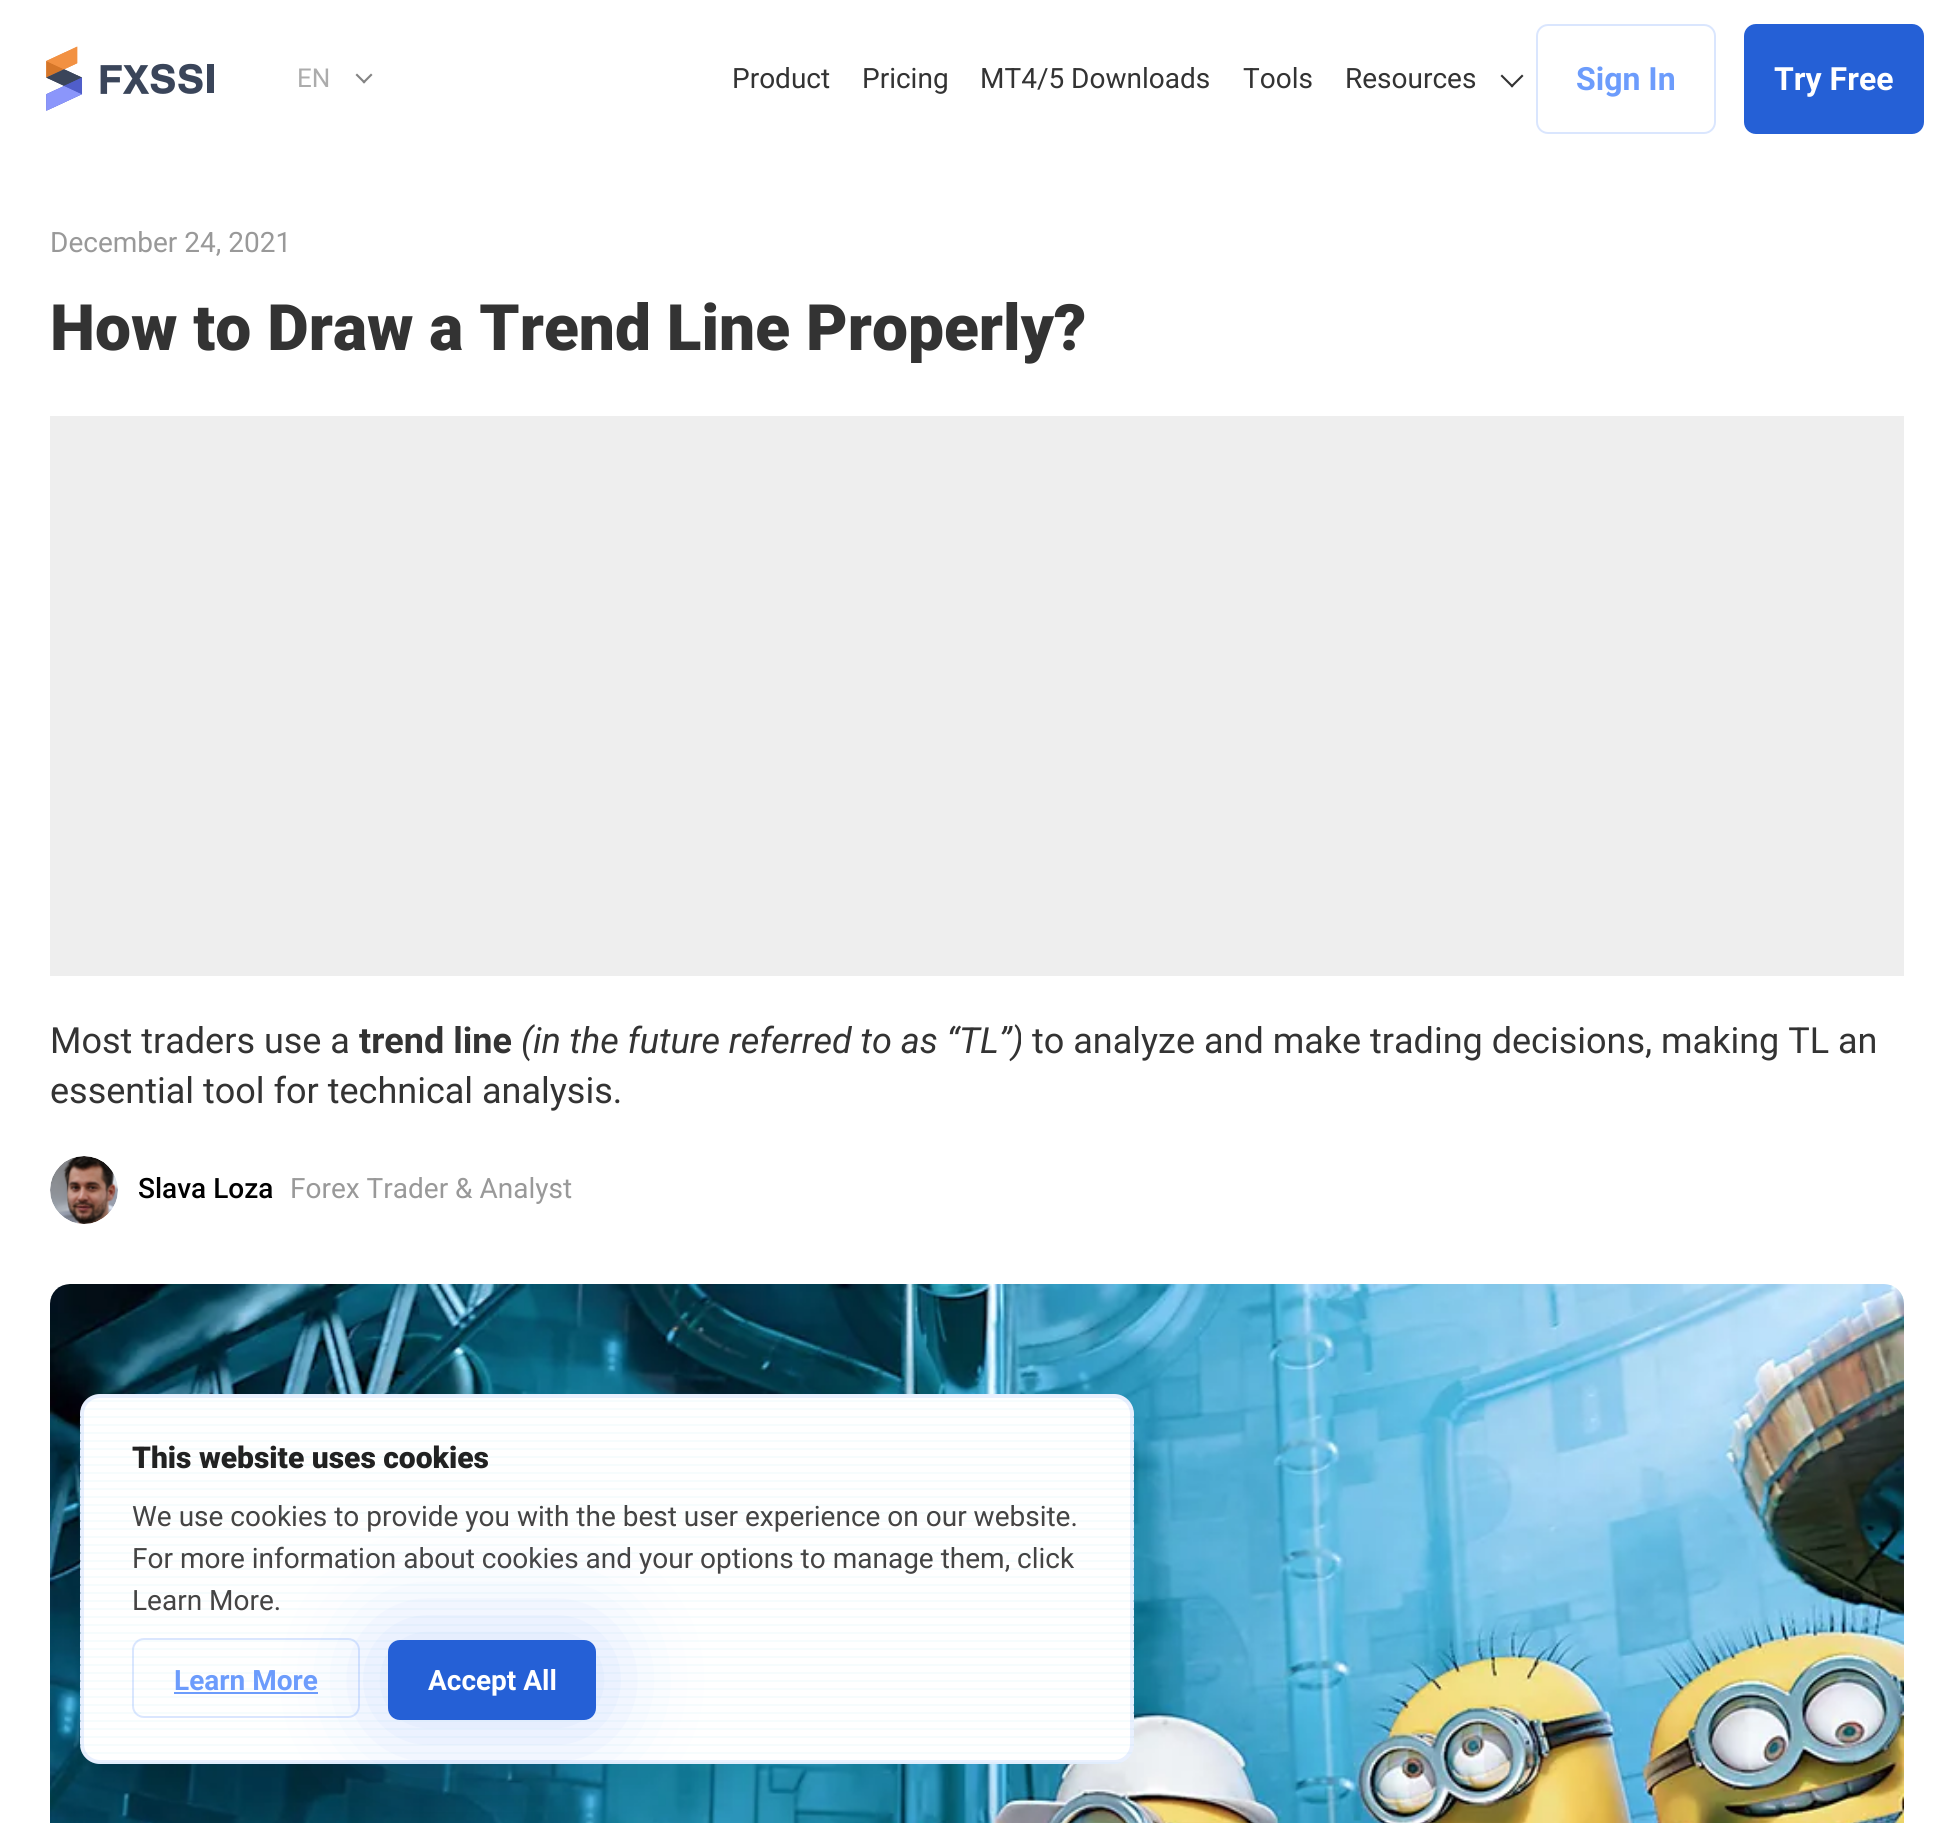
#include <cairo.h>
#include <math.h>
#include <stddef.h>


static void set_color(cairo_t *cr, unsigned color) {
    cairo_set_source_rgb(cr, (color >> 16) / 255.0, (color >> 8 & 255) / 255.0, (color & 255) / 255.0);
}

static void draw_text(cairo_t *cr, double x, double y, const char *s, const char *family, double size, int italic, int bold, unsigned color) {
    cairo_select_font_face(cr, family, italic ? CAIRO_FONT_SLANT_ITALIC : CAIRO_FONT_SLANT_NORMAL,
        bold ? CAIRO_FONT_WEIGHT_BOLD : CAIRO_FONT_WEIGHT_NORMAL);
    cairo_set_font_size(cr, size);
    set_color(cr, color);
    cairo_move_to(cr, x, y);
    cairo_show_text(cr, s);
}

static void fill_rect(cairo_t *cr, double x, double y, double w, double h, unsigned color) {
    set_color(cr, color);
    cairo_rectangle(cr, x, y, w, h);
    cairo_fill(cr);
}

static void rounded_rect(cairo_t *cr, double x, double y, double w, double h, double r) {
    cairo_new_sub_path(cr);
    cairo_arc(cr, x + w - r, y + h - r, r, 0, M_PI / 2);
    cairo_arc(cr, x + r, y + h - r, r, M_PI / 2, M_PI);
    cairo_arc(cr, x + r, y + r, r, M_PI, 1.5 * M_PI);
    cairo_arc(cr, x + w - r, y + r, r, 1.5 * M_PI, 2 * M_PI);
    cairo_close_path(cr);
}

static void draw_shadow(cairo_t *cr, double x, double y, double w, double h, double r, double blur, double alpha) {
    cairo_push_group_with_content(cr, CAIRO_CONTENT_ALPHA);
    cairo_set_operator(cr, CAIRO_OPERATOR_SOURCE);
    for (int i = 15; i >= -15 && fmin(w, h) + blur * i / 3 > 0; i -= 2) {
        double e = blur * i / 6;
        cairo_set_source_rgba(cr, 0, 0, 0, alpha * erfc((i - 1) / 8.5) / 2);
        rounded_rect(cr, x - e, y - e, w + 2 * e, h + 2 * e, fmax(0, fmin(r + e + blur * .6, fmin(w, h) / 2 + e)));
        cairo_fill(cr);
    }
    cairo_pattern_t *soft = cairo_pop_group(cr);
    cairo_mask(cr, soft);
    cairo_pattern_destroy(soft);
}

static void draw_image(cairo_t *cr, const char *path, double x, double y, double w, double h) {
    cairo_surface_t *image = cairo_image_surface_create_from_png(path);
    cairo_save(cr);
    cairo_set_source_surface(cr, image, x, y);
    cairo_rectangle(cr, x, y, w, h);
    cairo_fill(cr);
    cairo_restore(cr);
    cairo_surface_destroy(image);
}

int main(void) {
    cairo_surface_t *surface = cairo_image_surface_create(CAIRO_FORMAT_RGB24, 1954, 1823);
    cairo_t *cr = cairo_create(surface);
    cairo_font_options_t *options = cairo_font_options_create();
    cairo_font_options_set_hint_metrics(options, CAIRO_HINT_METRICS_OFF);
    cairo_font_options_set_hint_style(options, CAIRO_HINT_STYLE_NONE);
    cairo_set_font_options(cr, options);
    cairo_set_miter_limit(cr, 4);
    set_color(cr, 0xFFFFFF);
    cairo_paint(cr);
    draw_image(cr, "assets/img1.png", 46, 46, 168, 65);
    draw_text(cr, 297, 87, "EN", "Roboto", 26, 0, 0, 0xACACAC);
    set_color(cr, 0x838383);
    cairo_new_path(cr);
    cairo_move_to(cr, 372.5, 75);
    cairo_line_to(cr, 364, 83.5);
    cairo_line_to(cr, 362.5, 82);
    cairo_line_to(cr, 371, 73.5);
    cairo_close_path(cr);
    cairo_fill(cr);
    cairo_new_path(cr);
    cairo_move_to(cr, 365.5, 82);
    cairo_line_to(cr, 364, 83.5);
    cairo_line_to(cr, 355.5, 75);
    cairo_line_to(cr, 357, 73.5);
    cairo_close_path(cr);
    cairo_fill(cr);
    draw_text(cr, 732, 88, "Product", "Roboto", 28, 0, 0, 0x333333);
    draw_text(cr, 862, 88, "Pricing", "Roboto", 28, 0, 0, 0x333333);
    draw_text(cr, 980, 88, "MT4/5 Downloads", "Roboto", 28, 0, 0, 0x333333);
    draw_text(cr, 1243, 88, "Tools", "Roboto", 28, 0, 0, 0x333333);
    draw_text(cr, 1345, 88, "Resources", "Roboto", 28, 0, 0, 0x333333);
    cairo_new_path(cr);
    cairo_move_to(cr, 1523.5, 76);
    cairo_line_to(cr, 1512, 87.5);
    cairo_line_to(cr, 1510.5, 86);
    cairo_line_to(cr, 1522, 74.5);
    cairo_close_path(cr);
    cairo_fill(cr);
    cairo_new_path(cr);
    cairo_move_to(cr, 1513.5, 86);
    cairo_line_to(cr, 1512, 87.5);
    cairo_line_to(cr, 1500.5, 76);
    cairo_line_to(cr, 1502, 74.5);
    cairo_close_path(cr);
    cairo_fill(cr);
    rounded_rect(cr, 1537, 25, 178, 108, 11);
    set_color(cr, 0xDAE6FE);
    cairo_stroke(cr);
    draw_text(cr, 1576, 90, "Sign In", "Roboto", 32, 0, 1, 0x6C9CFC);
    set_color(cr, 0x2560D6);
    rounded_rect(cr, 1745, 25, 178, 108, 11);
    cairo_fill_preserve(cr);
    cairo_stroke(cr);
    draw_text(cr, 1774, 90, "Try Free", "Roboto", 32, 0, 1, 0xFFFFFF);
    set_color(cr, 0xF9FAFB);
    rounded_rect(cr, 50, 1284, 1854, 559, 20);
    cairo_fill(cr);
    draw_image(cr, "assets/img4.png", 50, 1284, 1854, 539);
    draw_image(cr, "assets/img2.png", 80, 1394, 1054, 370);
    rounded_rect(cr, 82, 1396, 1050, 366, 18);
    cairo_set_source_rgba(cr, 0.424, 0.612, 0.988, 0.15);
    cairo_set_line_width(cr, 4);
    cairo_stroke(cr);
    draw_text(cr, 132, 1468, "This website uses cookies", "Roboto Black", 30, 0, 0, 0x222222);
    draw_text(cr, 132, 1526, "We use cookies to provide you with the best user experience on our website.", "Roboto", 28, 0, 0, 0x444444);
    draw_text(cr, 132, 1568, "For more information about cookies and your options to manage them, click", "Roboto", 28, 0, 0, 0x444444);
    draw_text(cr, 132, 1610, "Learn More.", "Roboto", 28, 0, 0, 0x444444);
    rounded_rect(cr, 133, 1639, 226, 78, 11);
    cairo_set_source_rgba(cr, 0.424, 0.612, 0.988, 0.25);
    cairo_set_line_width(cr, 2);
    cairo_stroke(cr);
    draw_text(cr, 174, 1690, "Learn More", "Roboto", 28, 0, 1, 0x6C9CFC);
    fill_rect(cr, 174, 1692, 144, 2, 0x6C9CFC);
    set_color(cr, 0x6C9CFC);
    draw_shadow(cr, 388, 1640, 208, 80, 12, 50, 0.35);
    set_color(cr, 0x2560D6);
    rounded_rect(cr, 388, 1640, 208, 80, 12);
    cairo_fill(cr);
    draw_text(cr, 428, 1690, "Accept All", "Roboto", 28, 0, 1, 0xFFFFFF);
    draw_text(cr, 50, 252, "December 24, 2021", "Roboto", 28, 0, 0, 0x999999);
    draw_text(cr, 50, 350, "How to Draw a Trend Line Properly?", "Roboto Black", 64, 0, 0, 0x333333);
    fill_rect(cr, 50, 416, 1854, 560, 0xEEEEEE);
    draw_text(cr, 50, 1053, "Most traders use a", "Roboto", 36, 0, 0, 0x333333);
    draw_text(cr, 359, 1053, "trend line", "Roboto", 36, 0, 1, 0x333333);
    draw_text(cr, 521, 1053, "(in the future referred to as “TL”)", "Roboto", 36, 1, 0, 0x333333);
    draw_text(cr, 1032, 1053, "to analyze and make trading decisions, making TL an", "Roboto", 36, 0, 0, 0x333333);
    draw_text(cr, 50, 1103, "essential tool for technical analysis.", "Roboto", 36, 0, 0, 0x333333);
    draw_image(cr, "assets/img3.png", 50, 1156, 68, 68);
    draw_text(cr, 138, 1198, "Slava Loza", "Roboto Medium", 28, 0, 0, 0x000000);
    draw_text(cr, 290, 1198, "Forex Trader & Analyst", "Roboto", 28, 0, 0, 0x999999);
    cairo_surface_write_to_png(surface, "output.png");
    cairo_font_options_destroy(options);
    cairo_destroy(cr);
    cairo_surface_destroy(surface);
    return 0;
}
